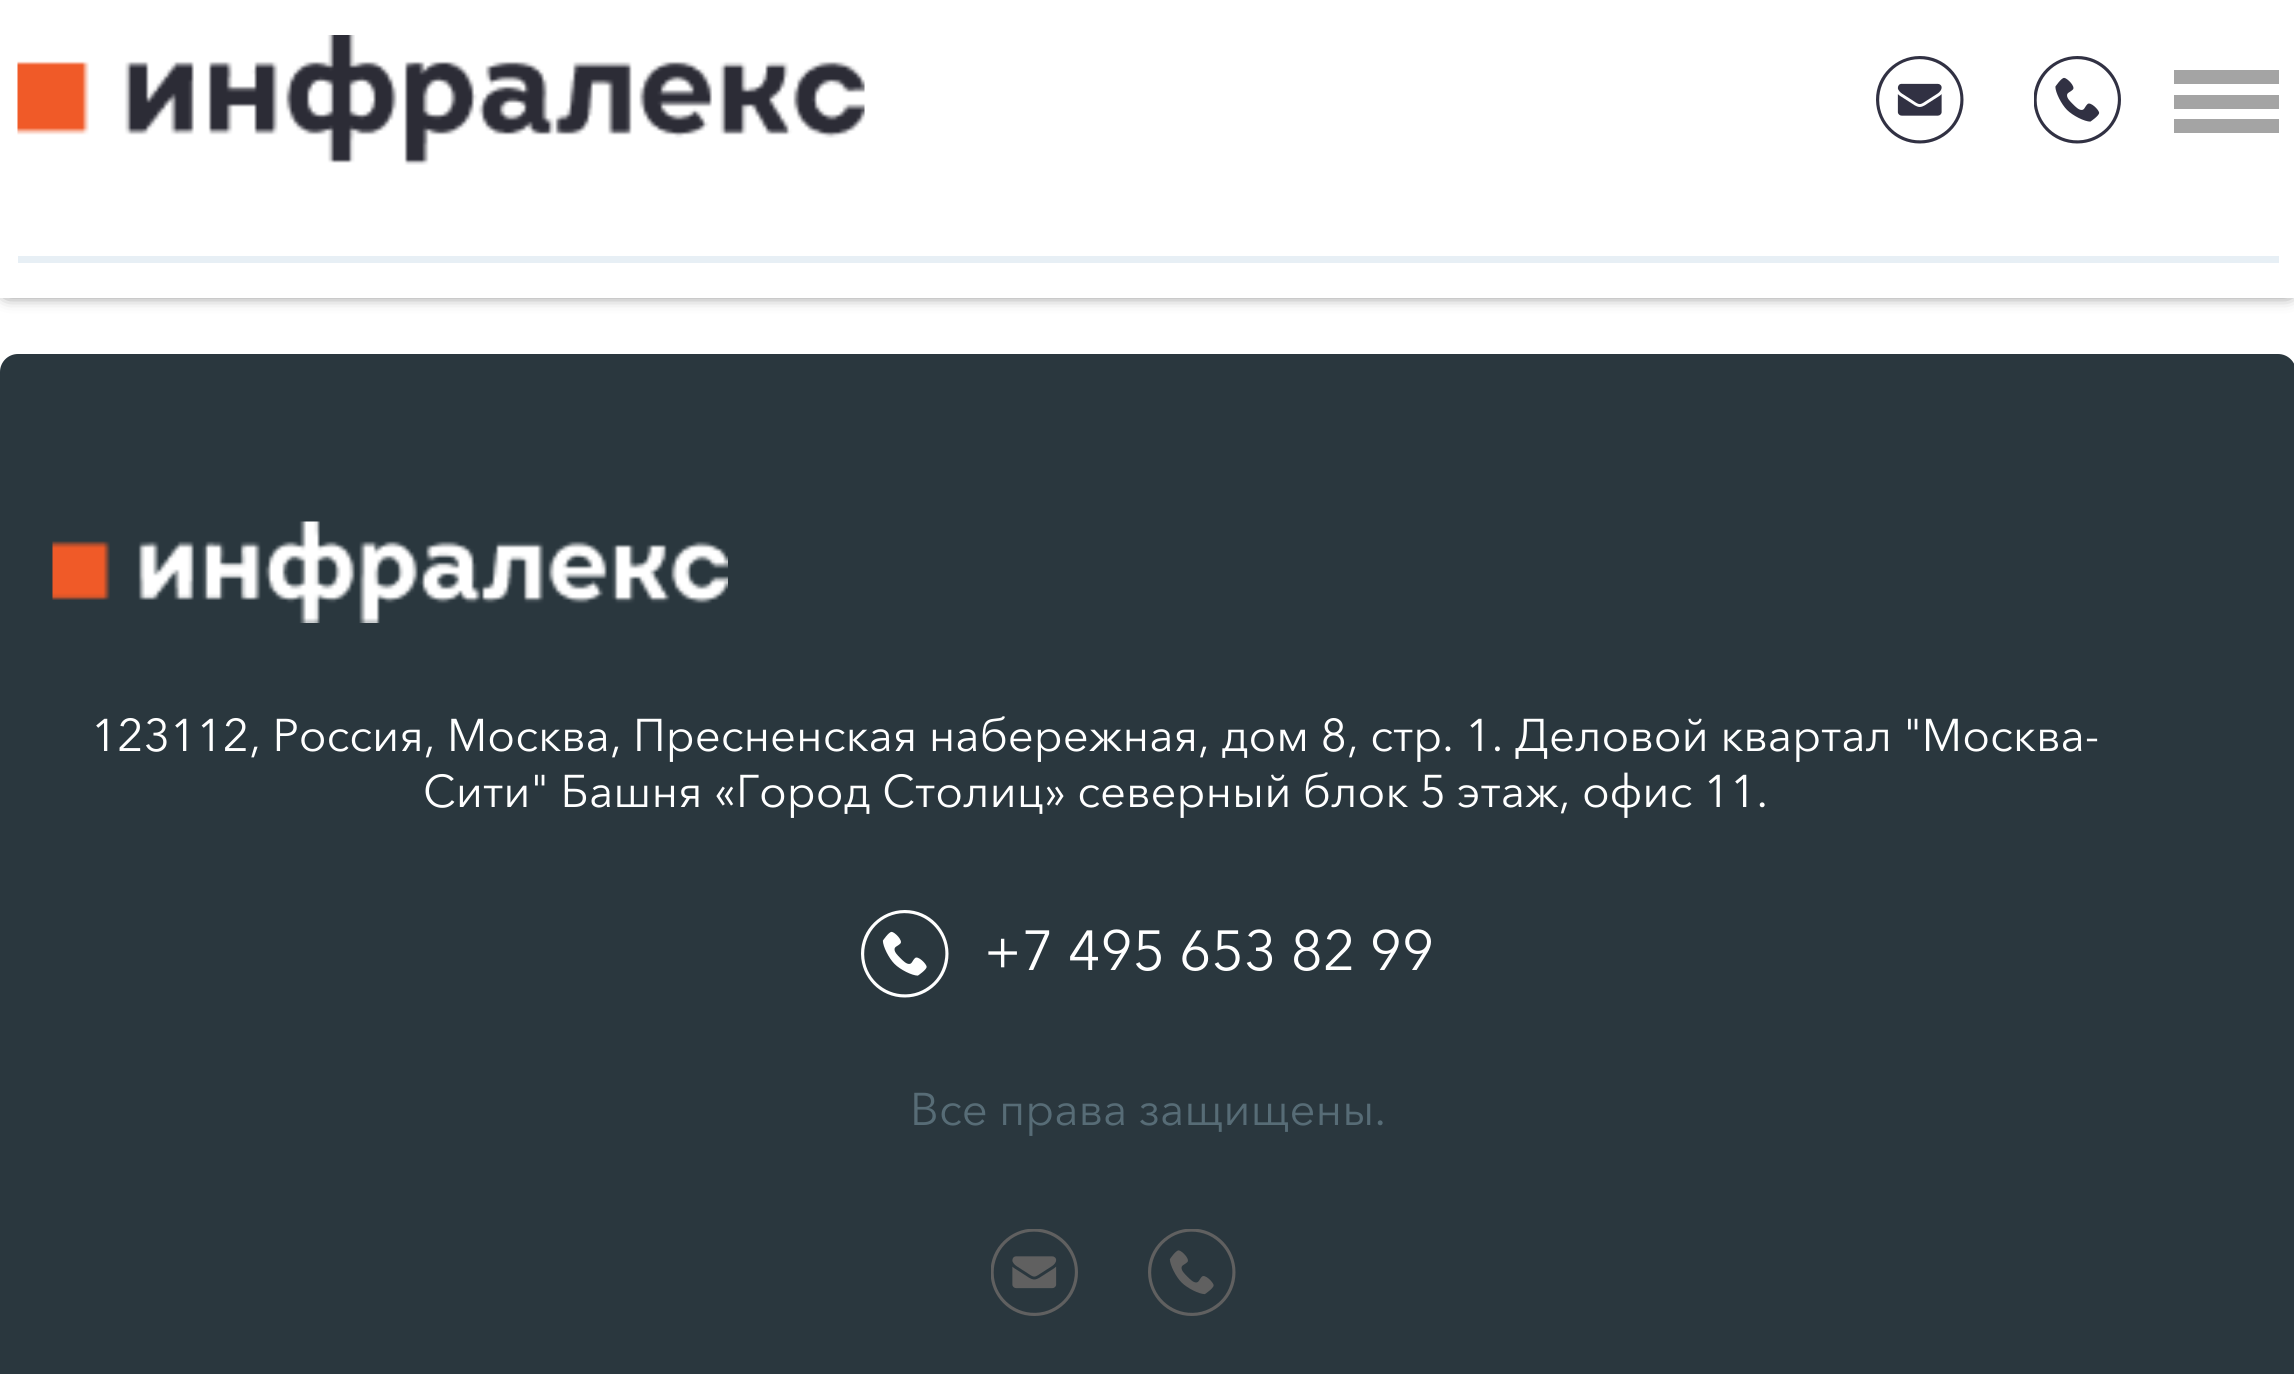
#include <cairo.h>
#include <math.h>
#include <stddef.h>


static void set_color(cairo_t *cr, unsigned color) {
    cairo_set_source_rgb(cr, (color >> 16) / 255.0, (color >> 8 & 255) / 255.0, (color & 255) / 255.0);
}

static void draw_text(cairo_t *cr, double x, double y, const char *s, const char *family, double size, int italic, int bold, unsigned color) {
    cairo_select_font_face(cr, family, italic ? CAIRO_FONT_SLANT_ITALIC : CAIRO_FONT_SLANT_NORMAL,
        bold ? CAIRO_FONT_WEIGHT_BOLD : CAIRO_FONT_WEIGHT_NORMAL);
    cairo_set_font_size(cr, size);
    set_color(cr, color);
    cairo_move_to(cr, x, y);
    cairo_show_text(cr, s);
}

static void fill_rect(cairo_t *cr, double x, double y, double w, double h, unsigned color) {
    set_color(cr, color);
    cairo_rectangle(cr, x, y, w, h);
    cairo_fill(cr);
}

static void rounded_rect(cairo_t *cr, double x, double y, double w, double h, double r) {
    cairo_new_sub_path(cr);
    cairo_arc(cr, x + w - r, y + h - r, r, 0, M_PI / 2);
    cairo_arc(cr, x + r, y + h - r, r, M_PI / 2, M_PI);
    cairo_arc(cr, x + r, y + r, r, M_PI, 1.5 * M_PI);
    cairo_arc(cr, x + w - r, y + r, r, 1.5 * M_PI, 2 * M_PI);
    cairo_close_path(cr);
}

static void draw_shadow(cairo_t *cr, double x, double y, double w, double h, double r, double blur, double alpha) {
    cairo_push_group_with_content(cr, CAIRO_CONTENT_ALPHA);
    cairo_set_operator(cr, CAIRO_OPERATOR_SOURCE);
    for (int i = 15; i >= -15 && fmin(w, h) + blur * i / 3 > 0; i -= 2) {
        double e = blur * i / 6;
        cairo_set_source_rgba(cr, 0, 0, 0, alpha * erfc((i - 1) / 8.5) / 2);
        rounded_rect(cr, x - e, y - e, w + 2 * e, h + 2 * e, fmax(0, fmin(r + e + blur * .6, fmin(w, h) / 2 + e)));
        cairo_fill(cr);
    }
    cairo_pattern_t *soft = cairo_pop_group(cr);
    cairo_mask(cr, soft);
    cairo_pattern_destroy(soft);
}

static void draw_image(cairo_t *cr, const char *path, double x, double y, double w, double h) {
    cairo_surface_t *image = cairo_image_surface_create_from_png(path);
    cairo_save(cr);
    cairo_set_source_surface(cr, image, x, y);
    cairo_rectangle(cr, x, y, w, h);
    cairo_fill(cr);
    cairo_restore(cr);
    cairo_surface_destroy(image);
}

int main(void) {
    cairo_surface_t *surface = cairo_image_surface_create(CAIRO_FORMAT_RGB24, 2294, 1374);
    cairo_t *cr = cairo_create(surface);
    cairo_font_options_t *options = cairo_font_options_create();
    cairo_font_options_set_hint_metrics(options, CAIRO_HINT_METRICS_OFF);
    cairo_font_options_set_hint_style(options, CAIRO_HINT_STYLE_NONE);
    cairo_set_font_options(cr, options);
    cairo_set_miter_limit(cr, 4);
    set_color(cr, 0xFFFFFF);
    cairo_paint(cr);
    set_color(cr, 0x000000);
    draw_shadow(cr, 7, 7, 2282, 284, 0, 9, 1);
    fill_rect(cr, 0, 0, 2294, 298, 0xFFFFFF);
    draw_image(cr, "assets/img1.png", 17, 35, 848, 130);
    draw_image(cr, "assets/img2.png", 1876, 56, 88, 88);
    draw_image(cr, "assets/img3.png", 2034, 56, 87, 88);
    fill_rect(cr, 2174, 70, 105, 14, 0xA4A4A4);
    fill_rect(cr, 2174, 95, 105, 14, 0xA4A4A4);
    fill_rect(cr, 2174, 119, 105, 14, 0xA4A4A4);
    fill_rect(cr, 18, 256, 2261, 7, 0xE7EFF5);
    set_color(cr, 0x2A373E);
    cairo_new_path(cr);
    cairo_move_to(cr, 18, 354);
    cairo_line_to(cr, 2278, 354);
    cairo_curve_to(cr, 2288, 354, 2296, 362, 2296, 372);
    cairo_line_to(cr, 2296, 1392);
    cairo_line_to(cr, 0, 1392);
    cairo_line_to(cr, 0, 372);
    cairo_curve_to(cr, 0, 362, 8, 354, 18, 354);
    cairo_close_path(cr);
    cairo_fill(cr);
    draw_image(cr, "assets/img4.png", 52, 521, 676, 102);
    draw_text(cr, 91, 751, "123112, Россия, Москва, Пресненская набережная, дом 8, стр. 1. Деловой квартал \"Москва-", "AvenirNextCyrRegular", 45.5, 0, 0, 0xFFFFFF);
    draw_text(cr, 423, 807, "Сити\" Башня «Город Столиц» северный блок 5 этаж, офис 11.", "AvenirNextCyrRegular", 45.5, 0, 0, 0xFFFFFF);
    draw_image(cr, "assets/img5.png", 861, 910, 88, 88);
    draw_text(cr, 984, 970, "+7 495 653 82 99", "AvenirNextCyrRegular", 56, 0, 0, 0xFFFFFF);
    draw_text(cr, 910, 1125, "Все права защищены.", "AvenirNextCyrRegular", 45.5, 0, 0, 0x576C76);
    draw_image(cr, "assets/img6.png", 991, 1229, 87, 87);
    draw_image(cr, "assets/img7.png", 1148, 1229, 88, 87);
    cairo_surface_write_to_png(surface, "output.png");
    cairo_font_options_destroy(options);
    cairo_destroy(cr);
    cairo_surface_destroy(surface);
    return 0;
}
